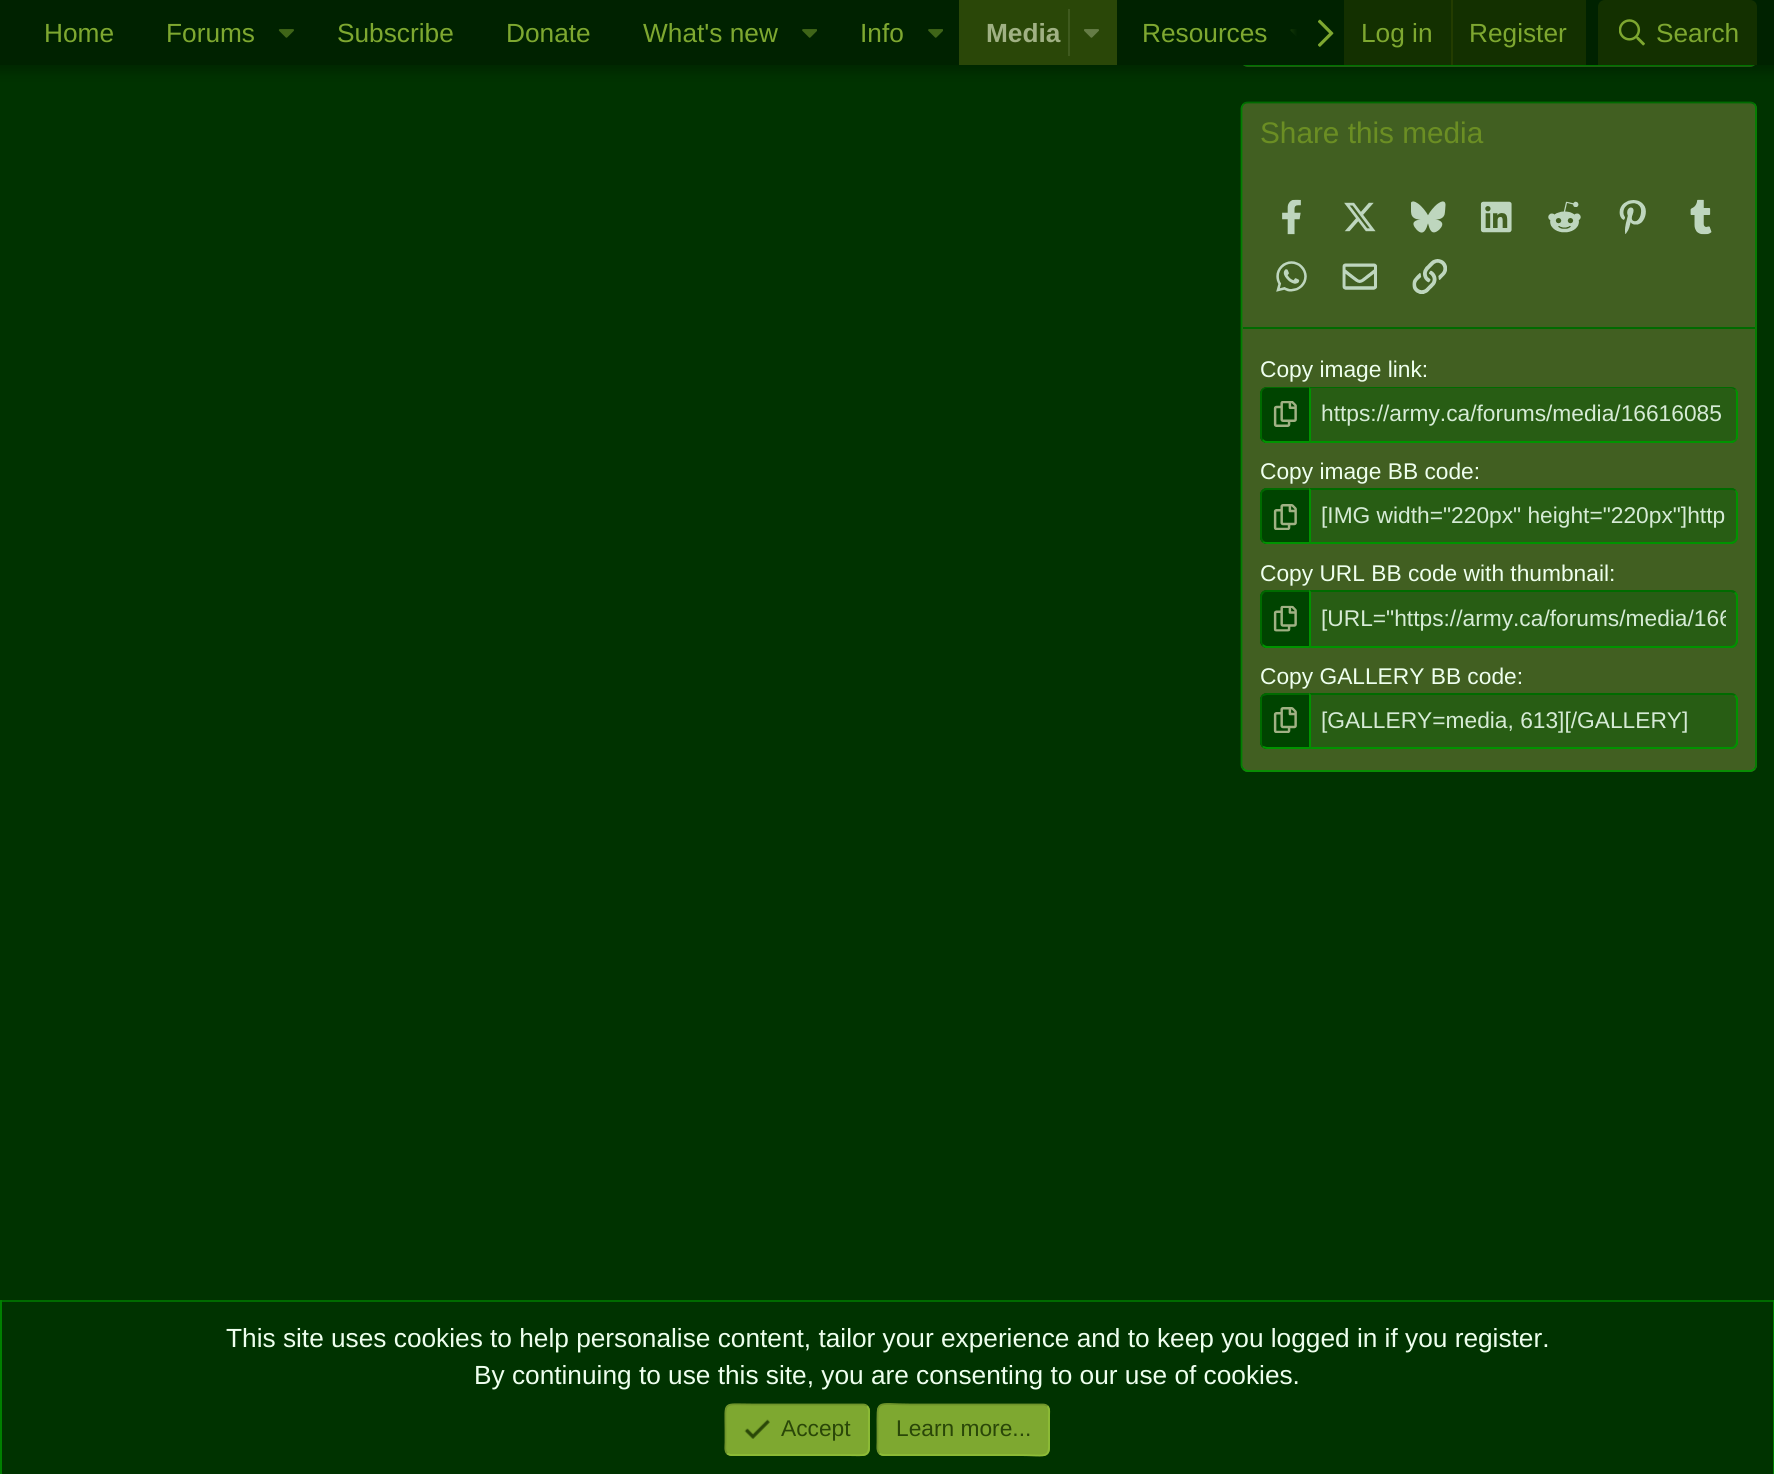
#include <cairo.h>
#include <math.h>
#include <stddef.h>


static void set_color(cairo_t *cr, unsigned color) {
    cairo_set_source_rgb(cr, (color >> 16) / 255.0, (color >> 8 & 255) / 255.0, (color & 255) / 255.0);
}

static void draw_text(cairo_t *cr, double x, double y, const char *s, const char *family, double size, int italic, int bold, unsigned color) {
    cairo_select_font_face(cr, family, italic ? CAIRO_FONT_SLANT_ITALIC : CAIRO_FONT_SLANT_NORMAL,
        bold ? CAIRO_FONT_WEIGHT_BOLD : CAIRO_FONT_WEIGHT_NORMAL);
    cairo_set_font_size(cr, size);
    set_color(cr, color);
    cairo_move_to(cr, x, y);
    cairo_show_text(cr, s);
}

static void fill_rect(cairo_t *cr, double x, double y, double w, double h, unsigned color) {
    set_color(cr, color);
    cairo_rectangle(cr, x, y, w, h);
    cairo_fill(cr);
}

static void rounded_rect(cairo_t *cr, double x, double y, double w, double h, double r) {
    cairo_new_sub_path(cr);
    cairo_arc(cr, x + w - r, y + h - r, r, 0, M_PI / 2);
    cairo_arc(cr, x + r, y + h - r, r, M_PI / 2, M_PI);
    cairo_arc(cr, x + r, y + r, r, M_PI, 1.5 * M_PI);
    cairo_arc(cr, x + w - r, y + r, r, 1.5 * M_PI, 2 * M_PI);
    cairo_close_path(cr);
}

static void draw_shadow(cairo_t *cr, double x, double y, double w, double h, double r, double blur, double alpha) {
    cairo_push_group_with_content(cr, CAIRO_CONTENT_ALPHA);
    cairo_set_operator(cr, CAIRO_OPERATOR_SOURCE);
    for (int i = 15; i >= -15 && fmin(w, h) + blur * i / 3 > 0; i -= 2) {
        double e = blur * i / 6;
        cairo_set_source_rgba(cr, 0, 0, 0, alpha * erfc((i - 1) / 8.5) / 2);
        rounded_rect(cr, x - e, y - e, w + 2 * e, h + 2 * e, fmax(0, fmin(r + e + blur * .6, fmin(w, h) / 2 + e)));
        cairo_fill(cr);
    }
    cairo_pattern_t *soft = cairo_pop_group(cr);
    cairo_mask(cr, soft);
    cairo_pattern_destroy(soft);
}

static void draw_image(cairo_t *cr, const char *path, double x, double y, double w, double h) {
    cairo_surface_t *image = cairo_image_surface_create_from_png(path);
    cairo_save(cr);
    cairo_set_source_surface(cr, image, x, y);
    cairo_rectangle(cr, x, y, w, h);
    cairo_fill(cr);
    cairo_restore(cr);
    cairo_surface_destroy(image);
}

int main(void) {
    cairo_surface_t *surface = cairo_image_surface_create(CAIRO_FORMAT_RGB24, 1774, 1474);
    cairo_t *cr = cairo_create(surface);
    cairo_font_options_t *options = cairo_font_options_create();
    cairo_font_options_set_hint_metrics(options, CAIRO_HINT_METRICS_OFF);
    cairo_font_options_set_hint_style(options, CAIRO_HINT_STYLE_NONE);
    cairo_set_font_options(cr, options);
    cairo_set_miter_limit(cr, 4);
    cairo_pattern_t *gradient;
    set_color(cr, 0x003300);
    cairo_paint(cr);
    set_color(cr, 0x415F21);
    rounded_rect(cr, 1241, -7, 516, 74, 7);
    cairo_fill(cr);
    cairo_new_path(cr);
    cairo_move_to(cr, 1754.5, 64);
    cairo_curve_to(cr, 1753, 65, 1751.5, 65.5, 1750, 65.5);
    cairo_line_to(cr, 1248, 65.5);
    cairo_curve_to(cr, 1246, 65.5, 1244.5, 65, 1243.5, 64);
    set_color(cr, 0x009400);
    cairo_set_line_width(cr, 1.8);
    cairo_stroke(cr);
    set_color(cr, 0x000000);
    draw_shadow(cr, -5, -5, 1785, 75, 0, 7, 0.3);
    fill_rect(cr, 0, 0, 1774, 65, 0x002200);
    draw_text(cr, 44, 42, "Home", "Liberation Sans", 26.25, 0, 0, 0x7EA830);
    draw_text(cr, 166, 42, "Forums", "Liberation Sans", 26.25, 0, 0, 0x7EA830);
    draw_image(cr, "assets/img1.png", 278, 29, 16, 9);
    draw_text(cr, 337, 42, "Subscribe", "Liberation Sans", 26.25, 0, 0, 0x7EA830);
    draw_text(cr, 506, 42, "Donate", "Liberation Sans", 26.25, 0, 0, 0x7EA830);
    draw_text(cr, 643, 42, "What's new", "Liberation Sans", 26.25, 0, 0, 0x7EA830);
    draw_image(cr, "assets/img2.png", 802, 29, 15, 9);
    draw_text(cr, 860, 42, "Info", "Liberation Sans", 26.25, 0, 0, 0x7EA830);
    draw_image(cr, "assets/img2.png", 928, 29, 15, 9);
    fill_rect(cr, 959, 0, 158, 65, 0x2A4708);
    draw_text(cr, 986, 42, "Media", "Liberation Sans", 26.25, 0, 1, 0xA0B184);
    fill_rect(cr, 1068, 9, 2, 47, 0x3F5A1E);
    draw_image(cr, "assets/img3.png", 1084, 29, 15, 9);
    draw_text(cr, 1142, 42, "Resources", "Liberation Sans", 26.25, 0, 0, 0x7EA830);
    draw_image(cr, "assets/img4.png", 1290, 29, 7, 8);
    gradient = cairo_pattern_create_linear(1274, 32, 1344, 32);
    cairo_pattern_add_color_stop_rgba(gradient, 0, 0, 0.133, 0, 0);
    cairo_pattern_add_color_stop_rgba(gradient, 0.33, 0, 0.133, 0, 1);
    cairo_set_source(cr, gradient);
    cairo_pattern_destroy(gradient);
    cairo_rectangle(cr, 1290, 29, 7, 8);
    cairo_fill(cr);
    draw_image(cr, "assets/img5.png", 1318, 19, 16, 28);
    fill_rect(cr, 1344, 0, 242, 65, 0x133000);
    draw_text(cr, 1361, 42, "Log in", "Liberation Sans", 26.25, 0, 0, 0x7EA830);
    fill_rect(cr, 1451, 0, 2, 65, 0x233C00);
    draw_text(cr, 1469, 42, "Register", "Liberation Sans", 26.25, 0, 0, 0x7EA830);
    set_color(cr, 0x133000);
    cairo_new_path(cr);
    cairo_move_to(cr, 1605, 0);
    cairo_line_to(cr, 1750, 0);
    cairo_curve_to(cr, 1754, 0, 1757, 3, 1757, 7);
    cairo_line_to(cr, 1757, 65);
    cairo_line_to(cr, 1598, 65);
    cairo_line_to(cr, 1598, 7);
    cairo_curve_to(cr, 1598, 3, 1601, 0, 1605, 0);
    cairo_close_path(cr);
    cairo_fill(cr);
    draw_image(cr, "assets/img6.png", 1619, 19, 26, 27);
    draw_text(cr, 1656, 42, "Search", "Liberation Sans", 26.25, 0, 0, 0x7EA830);
    set_color(cr, 0x415F21);
    rounded_rect(cr, 1241, 102, 516, 670, 7);
    cairo_fill(cr);
    cairo_new_path(cr);
    cairo_move_to(cr, 1243.5, 104);
    cairo_curve_to(cr, 1244.5, 103, 1246, 102.5, 1248, 102.5);
    cairo_line_to(cr, 1750, 102.5);
    cairo_curve_to(cr, 1751.5, 102.5, 1753, 103, 1754.5, 104);
    set_color(cr, 0x006B00);
    cairo_stroke(cr);
    cairo_new_path(cr);
    cairo_move_to(cr, 1754.5, 104);
    cairo_curve_to(cr, 1755.5, 105.5, 1756, 107, 1756, 108.5);
    cairo_line_to(cr, 1756, 765);
    cairo_curve_to(cr, 1756, 766.5, 1755.5, 768, 1754.5, 769);
    set_color(cr, 0x008000);
    cairo_stroke(cr);
    cairo_new_path(cr);
    cairo_move_to(cr, 1754.5, 769);
    cairo_curve_to(cr, 1753, 770, 1751.5, 771, 1750, 771);
    cairo_line_to(cr, 1248, 771);
    cairo_curve_to(cr, 1246, 771, 1244.5, 770, 1243.5, 769);
    set_color(cr, 0x009400);
    cairo_stroke(cr);
    cairo_new_path(cr);
    cairo_move_to(cr, 1243.5, 769);
    cairo_curve_to(cr, 1242.5, 768, 1241.5, 766.5, 1241.5, 765);
    cairo_line_to(cr, 1241.5, 108.5);
    cairo_curve_to(cr, 1241.5, 107, 1242.5, 105.5, 1243.5, 104);
    set_color(cr, 0x008000);
    cairo_stroke(cr);
    draw_text(cr, 1260, 143, "Share this media", "Liberation Sans", 29.75, 0, 0, 0x6B8E23);
    draw_image(cr, "assets/img7.png", 1282, 199, 19, 36);
    draw_image(cr, "assets/img8.png", 1344, 202, 32, 30);
    draw_image(cr, "assets/img9.png", 1411, 201, 35, 32);
    draw_image(cr, "assets/img10.png", 1480, 201, 32, 32);
    draw_image(cr, "assets/img11.png", 1548, 201, 33, 32);
    draw_image(cr, "assets/img12.png", 1619, 200, 27, 34);
    draw_image(cr, "assets/img13.png", 1690, 199, 22, 36);
    draw_image(cr, "assets/img14.png", 1276, 261, 31, 31);
    draw_image(cr, "assets/img15.png", 1342, 263, 35, 27);
    draw_image(cr, "assets/img16.png", 1412, 259, 35, 35);
    fill_rect(cr, 1243, 327, 512, 2, 0x006B00);
    draw_text(cr, 1260, 377, "Copy image link:", "Liberation Sans", 22.75, 0, 0, 0xEEFFEE);
    set_color(cr, 0x004400);
    cairo_new_path(cr);
    cairo_move_to(cr, 1267, 387);
    cairo_line_to(cr, 1309, 387);
    cairo_line_to(cr, 1309, 443);
    cairo_line_to(cr, 1267, 443);
    cairo_curve_to(cr, 1263, 443, 1260, 440, 1260, 436);
    cairo_line_to(cr, 1260, 394);
    cairo_curve_to(cr, 1260, 390, 1263, 387, 1267, 387);
    cairo_close_path(cr);
    cairo_fill(cr);
    set_color(cr, 0x006B00);
    cairo_new_path(cr);
    cairo_move_to(cr, 1267, 387);
    cairo_line_to(cr, 1309, 387);
    cairo_line_to(cr, 1309, 388);
    cairo_line_to(cr, 1267, 388);
    cairo_curve_to(cr, 1265, 388, 1264, 389, 1263, 390);
    cairo_line_to(cr, 1262, 389);
    cairo_curve_to(cr, 1263, 388, 1265, 387, 1267, 387);
    cairo_close_path(cr);
    cairo_fill(cr);
    set_color(cr, 0x009400);
    cairo_new_path(cr);
    cairo_move_to(cr, 1309, 443);
    cairo_line_to(cr, 1265, 443);
    cairo_line_to(cr, 1262, 441);
    cairo_line_to(cr, 1263, 439);
    cairo_curve_to(cr, 1264, 440, 1265, 441, 1267, 441);
    cairo_line_to(cr, 1309, 441);
    cairo_close_path(cr);
    cairo_fill(cr);
    set_color(cr, 0x006B00);
    cairo_new_path(cr);
    cairo_move_to(cr, 1263, 439);
    cairo_line_to(cr, 1262, 441);
    cairo_curve_to(cr, 1261, 440, 1260, 438, 1260, 436);
    cairo_line_to(cr, 1260, 394);
    cairo_curve_to(cr, 1260, 392, 1261, 390, 1262, 389);
    cairo_line_to(cr, 1263, 390);
    cairo_curve_to(cr, 1262, 391, 1262, 393, 1262, 394);
    cairo_line_to(cr, 1262, 436);
    cairo_curve_to(cr, 1262, 437, 1262, 439, 1263, 439);
    cairo_close_path(cr);
    cairo_fill(cr);
    draw_image(cr, "assets/img17.png", 1273, 401, 24, 26);
    set_color(cr, 0x285D14);
    cairo_new_path(cr);
    cairo_move_to(cr, 1309, 387);
    cairo_line_to(cr, 1731, 387);
    cairo_curve_to(cr, 1735, 387, 1738, 390, 1738, 394);
    cairo_line_to(cr, 1738, 436);
    cairo_curve_to(cr, 1738, 440, 1735, 443, 1731, 443);
    cairo_line_to(cr, 1309, 443);
    cairo_close_path(cr);
    cairo_fill(cr);
    set_color(cr, 0x006B00);
    cairo_new_path(cr);
    cairo_move_to(cr, 1311, 388);
    cairo_line_to(cr, 1731, 388);
    cairo_curve_to(cr, 1732, 388, 1734, 389, 1735, 390);
    cairo_line_to(cr, 1736, 389);
    cairo_curve_to(cr, 1735, 388, 1733, 387, 1731, 387);
    cairo_line_to(cr, 1309, 387);
    cairo_line_to(cr, 1311, 389);
    cairo_close_path(cr);
    cairo_fill(cr);
    set_color(cr, 0x009400);
    cairo_new_path(cr);
    cairo_move_to(cr, 1736, 389);
    cairo_line_to(cr, 1738, 392);
    cairo_line_to(cr, 1738, 438);
    cairo_line_to(cr, 1736, 441);
    cairo_line_to(cr, 1735, 440);
    cairo_curve_to(cr, 1736, 439, 1736, 438, 1736, 436);
    cairo_line_to(cr, 1736, 394);
    cairo_curve_to(cr, 1736, 392, 1736, 391, 1735, 390);
    cairo_close_path(cr);
    cairo_fill(cr);
    cairo_new_path(cr);
    cairo_move_to(cr, 1733, 443);
    cairo_line_to(cr, 1309, 443);
    cairo_line_to(cr, 1311, 441);
    cairo_line_to(cr, 1731, 441);
    cairo_curve_to(cr, 1732, 441, 1734, 440, 1735, 440);
    cairo_line_to(cr, 1736, 441);
    cairo_close_path(cr);
    cairo_fill(cr);
    cairo_new_path(cr);
    cairo_move_to(cr, 1309, 443);
    cairo_line_to(cr, 1311, 441);
    cairo_line_to(cr, 1311, 389);
    cairo_line_to(cr, 1309, 387);
    cairo_close_path(cr);
    cairo_fill(cr);
    draw_text(cr, 1321, 421, "https://army.ca/forums/media/16616085", "Liberation Sans", 22.75, 0, 0, 0xD6EBD6);
    draw_text(cr, 1260, 479, "Copy image BB code:", "Liberation Sans", 22.75, 0, 0, 0xEEFFEE);
    set_color(cr, 0x004400);
    cairo_new_path(cr);
    cairo_move_to(cr, 1267, 488);
    cairo_line_to(cr, 1309, 488);
    cairo_line_to(cr, 1309, 544);
    cairo_line_to(cr, 1267, 544);
    cairo_curve_to(cr, 1263, 544, 1260, 541, 1260, 537);
    cairo_line_to(cr, 1260, 495);
    cairo_curve_to(cr, 1260, 491, 1263, 488, 1267, 488);
    cairo_close_path(cr);
    cairo_fill(cr);
    set_color(cr, 0x006B00);
    cairo_new_path(cr);
    cairo_move_to(cr, 1267, 490);
    cairo_curve_to(cr, 1265, 490, 1264, 491, 1263, 492);
    cairo_line_to(cr, 1262, 490);
    cairo_line_to(cr, 1265, 488);
    cairo_line_to(cr, 1309, 488);
    cairo_line_to(cr, 1309, 490);
    cairo_close_path(cr);
    cairo_fill(cr);
    set_color(cr, 0x009400);
    cairo_new_path(cr);
    cairo_move_to(cr, 1309, 544);
    cairo_line_to(cr, 1309, 542);
    cairo_line_to(cr, 1267, 542);
    cairo_curve_to(cr, 1266, 542, 1264, 542, 1264, 541);
    cairo_line_to(cr, 1262, 542);
    cairo_curve_to(cr, 1263, 543, 1265, 544, 1267, 544);
    cairo_close_path(cr);
    cairo_fill(cr);
    set_color(cr, 0x006B00);
    cairo_new_path(cr);
    cairo_move_to(cr, 1260, 495);
    cairo_line_to(cr, 1260, 537);
    cairo_curve_to(cr, 1260, 539, 1261, 541, 1262, 542);
    cairo_line_to(cr, 1264, 541);
    cairo_curve_to(cr, 1263, 540, 1262, 539, 1262, 537);
    cairo_line_to(cr, 1262, 495);
    cairo_curve_to(cr, 1262, 494, 1262, 492, 1263, 492);
    cairo_line_to(cr, 1262, 490);
    cairo_curve_to(cr, 1261, 491, 1260, 493, 1260, 495);
    cairo_close_path(cr);
    cairo_fill(cr);
    draw_image(cr, "assets/img18.png", 1273, 504, 24, 26);
    set_color(cr, 0x285D14);
    cairo_new_path(cr);
    cairo_move_to(cr, 1309, 488);
    cairo_line_to(cr, 1731, 488);
    cairo_curve_to(cr, 1735, 488, 1738, 491, 1738, 495);
    cairo_line_to(cr, 1738, 537);
    cairo_curve_to(cr, 1738, 541, 1735, 544, 1731, 544);
    cairo_line_to(cr, 1309, 544);
    cairo_close_path(cr);
    cairo_fill(cr);
    set_color(cr, 0x006B00);
    cairo_new_path(cr);
    cairo_move_to(cr, 1311, 490);
    cairo_line_to(cr, 1309, 488);
    cairo_line_to(cr, 1733, 488);
    cairo_line_to(cr, 1736, 490);
    cairo_line_to(cr, 1735, 491);
    cairo_curve_to(cr, 1734, 490, 1732, 490, 1731, 490);
    cairo_close_path(cr);
    cairo_fill(cr);
    set_color(cr, 0x009400);
    cairo_new_path(cr);
    cairo_move_to(cr, 1738, 539);
    cairo_line_to(cr, 1736, 542);
    cairo_line_to(cr, 1734, 541);
    cairo_curve_to(cr, 1735, 540, 1736, 539, 1736, 537);
    cairo_line_to(cr, 1736, 495);
    cairo_curve_to(cr, 1736, 494, 1736, 492, 1735, 491);
    cairo_line_to(cr, 1736, 490);
    cairo_line_to(cr, 1738, 493);
    cairo_close_path(cr);
    cairo_fill(cr);
    cairo_new_path(cr);
    cairo_move_to(cr, 1736, 542);
    cairo_curve_to(cr, 1735, 543, 1733, 544, 1731, 544);
    cairo_line_to(cr, 1309, 544);
    cairo_line_to(cr, 1311, 542);
    cairo_line_to(cr, 1731, 542);
    cairo_line_to(cr, 1734, 541);
    cairo_close_path(cr);
    cairo_fill(cr);
    cairo_new_path(cr);
    cairo_move_to(cr, 1309, 488);
    cairo_line_to(cr, 1309, 544);
    cairo_line_to(cr, 1311, 542);
    cairo_line_to(cr, 1311, 490);
    cairo_close_path(cr);
    cairo_fill(cr);
    draw_text(cr, 1321, 523, "[IMG width=\"220px\" height=\"220px\"]http", "Liberation Sans", 22.75, 0, 0, 0xD6EBD6);
    draw_text(cr, 1260, 581, "Copy URL BB code with thumbnail:", "Liberation Sans", 22.75, 0, 0, 0xEEFFEE);
    set_color(cr, 0x004400);
    cairo_new_path(cr);
    cairo_move_to(cr, 1267, 590);
    cairo_line_to(cr, 1309, 590);
    cairo_line_to(cr, 1309, 648);
    cairo_line_to(cr, 1267, 648);
    cairo_curve_to(cr, 1263, 648, 1260, 645, 1260, 641);
    cairo_line_to(cr, 1260, 597);
    cairo_curve_to(cr, 1260, 593, 1263, 590, 1267, 590);
    cairo_close_path(cr);
    cairo_fill(cr);
    set_color(cr, 0x006B00);
    cairo_new_path(cr);
    cairo_move_to(cr, 1267, 590);
    cairo_line_to(cr, 1309, 590);
    cairo_line_to(cr, 1309, 592);
    cairo_line_to(cr, 1267, 592);
    cairo_curve_to(cr, 1266, 592, 1264, 592, 1264, 593);
    cairo_line_to(cr, 1262, 592);
    cairo_curve_to(cr, 1263, 591, 1265, 590, 1267, 590);
    cairo_close_path(cr);
    cairo_fill(cr);
    set_color(cr, 0x009400);
    cairo_new_path(cr);
    cairo_move_to(cr, 1309, 648);
    cairo_line_to(cr, 1265, 648);
    cairo_line_to(cr, 1262, 646);
    cairo_line_to(cr, 1263, 644);
    cairo_curve_to(cr, 1264, 645, 1266, 646, 1267, 646);
    cairo_line_to(cr, 1309, 646);
    cairo_close_path(cr);
    cairo_fill(cr);
    set_color(cr, 0x006B00);
    cairo_new_path(cr);
    cairo_move_to(cr, 1263, 644);
    cairo_line_to(cr, 1262, 646);
    cairo_curve_to(cr, 1261, 644, 1260, 642, 1260, 640);
    cairo_line_to(cr, 1260, 597);
    cairo_curve_to(cr, 1260, 595, 1261, 593, 1262, 592);
    cairo_line_to(cr, 1264, 593);
    cairo_curve_to(cr, 1263, 594, 1262, 595, 1262, 597);
    cairo_line_to(cr, 1262, 640);
    cairo_curve_to(cr, 1262, 642, 1262, 643, 1263, 644);
    cairo_close_path(cr);
    cairo_fill(cr);
    draw_image(cr, "assets/img19.png", 1273, 605, 24, 27);
    set_color(cr, 0x285D14);
    cairo_new_path(cr);
    cairo_move_to(cr, 1309, 590);
    cairo_line_to(cr, 1731, 590);
    cairo_curve_to(cr, 1735, 590, 1738, 593, 1738, 597);
    cairo_line_to(cr, 1738, 641);
    cairo_curve_to(cr, 1738, 645, 1735, 648, 1731, 648);
    cairo_line_to(cr, 1309, 648);
    cairo_close_path(cr);
    cairo_fill(cr);
    set_color(cr, 0x006B00);
    cairo_new_path(cr);
    cairo_move_to(cr, 1736, 592);
    cairo_curve_to(cr, 1735, 591, 1733, 590, 1731, 590);
    cairo_line_to(cr, 1309, 590);
    cairo_line_to(cr, 1311, 592);
    cairo_line_to(cr, 1731, 592);
    cairo_line_to(cr, 1734, 593);
    cairo_close_path(cr);
    cairo_fill(cr);
    set_color(cr, 0x009400);
    cairo_new_path(cr);
    cairo_move_to(cr, 1736, 592);
    cairo_line_to(cr, 1738, 595);
    cairo_line_to(cr, 1738, 642);
    cairo_line_to(cr, 1736, 646);
    cairo_line_to(cr, 1735, 644);
    cairo_curve_to(cr, 1735, 643, 1736, 642, 1736, 640);
    cairo_line_to(cr, 1736, 597);
    cairo_curve_to(cr, 1736, 595, 1735, 594, 1734, 593);
    cairo_close_path(cr);
    cairo_fill(cr);
    cairo_new_path(cr);
    cairo_move_to(cr, 1733, 648);
    cairo_line_to(cr, 1309, 648);
    cairo_line_to(cr, 1311, 646);
    cairo_line_to(cr, 1731, 646);
    cairo_curve_to(cr, 1732, 646, 1734, 645, 1735, 644);
    cairo_line_to(cr, 1736, 646);
    cairo_close_path(cr);
    cairo_fill(cr);
    cairo_new_path(cr);
    cairo_move_to(cr, 1311, 592);
    cairo_line_to(cr, 1309, 590);
    cairo_line_to(cr, 1309, 648);
    cairo_line_to(cr, 1311, 646);
    cairo_close_path(cr);
    cairo_fill(cr);
    cairo_save(cr);
    cairo_rectangle(cr, 1321, 602, 405, 33);
    cairo_clip(cr);
    draw_text(cr, 1321, 626, "[URL=\"https://army.ca/forums/media/166", "Liberation Sans", 22.75, 0, 0, 0xD6EBD6);
    cairo_restore(cr);
    draw_text(cr, 1260, 684, "Copy GALLERY BB code:", "Liberation Sans", 22.75, 0, 0, 0xEEFFEE);
    set_color(cr, 0x004400);
    cairo_new_path(cr);
    cairo_move_to(cr, 1267, 693);
    cairo_line_to(cr, 1309, 693);
    cairo_line_to(cr, 1309, 749);
    cairo_line_to(cr, 1267, 749);
    cairo_curve_to(cr, 1263, 749, 1260, 746, 1260, 742);
    cairo_line_to(cr, 1260, 700);
    cairo_curve_to(cr, 1260, 696, 1263, 693, 1267, 693);
    cairo_close_path(cr);
    cairo_fill(cr);
    set_color(cr, 0x006B00);
    cairo_new_path(cr);
    cairo_move_to(cr, 1267, 693);
    cairo_curve_to(cr, 1265, 693, 1263, 694, 1262, 695);
    cairo_line_to(cr, 1263, 696);
    cairo_curve_to(cr, 1264, 696, 1266, 695, 1267, 695);
    cairo_line_to(cr, 1309, 695);
    cairo_line_to(cr, 1309, 693);
    cairo_close_path(cr);
    cairo_fill(cr);
    set_color(cr, 0x009400);
    cairo_new_path(cr);
    cairo_move_to(cr, 1309, 749);
    cairo_line_to(cr, 1309, 747);
    cairo_line_to(cr, 1267, 747);
    cairo_curve_to(cr, 1266, 747, 1264, 746, 1263, 746);
    cairo_line_to(cr, 1262, 747);
    cairo_curve_to(cr, 1263, 748, 1265, 749, 1267, 749);
    cairo_close_path(cr);
    cairo_fill(cr);
    set_color(cr, 0x006B00);
    cairo_new_path(cr);
    cairo_move_to(cr, 1260, 700);
    cairo_line_to(cr, 1260, 742);
    cairo_curve_to(cr, 1260, 744, 1261, 746, 1262, 747);
    cairo_line_to(cr, 1263, 746);
    cairo_curve_to(cr, 1262, 745, 1262, 744, 1262, 742);
    cairo_line_to(cr, 1262, 700);
    cairo_curve_to(cr, 1262, 698, 1262, 697, 1263, 696);
    cairo_line_to(cr, 1262, 695);
    cairo_curve_to(cr, 1261, 696, 1260, 698, 1260, 700);
    cairo_close_path(cr);
    cairo_fill(cr);
    draw_image(cr, "assets/img18.png", 1273, 707, 24, 26);
    set_color(cr, 0x285D14);
    cairo_new_path(cr);
    cairo_move_to(cr, 1309, 693);
    cairo_line_to(cr, 1731, 693);
    cairo_curve_to(cr, 1735, 693, 1738, 696, 1738, 700);
    cairo_line_to(cr, 1738, 742);
    cairo_curve_to(cr, 1738, 746, 1735, 749, 1731, 749);
    cairo_line_to(cr, 1309, 749);
    cairo_close_path(cr);
    cairo_fill(cr);
    set_color(cr, 0x006B00);
    cairo_new_path(cr);
    cairo_move_to(cr, 1309, 693);
    cairo_line_to(cr, 1311, 695);
    cairo_line_to(cr, 1731, 695);
    cairo_curve_to(cr, 1732, 695, 1734, 695, 1734, 696);
    cairo_line_to(cr, 1736, 695);
    cairo_curve_to(cr, 1735, 694, 1733, 693, 1731, 693);
    cairo_close_path(cr);
    cairo_fill(cr);
    set_color(cr, 0x009400);
    cairo_new_path(cr);
    cairo_move_to(cr, 1738, 744);
    cairo_line_to(cr, 1736, 747);
    cairo_line_to(cr, 1734, 746);
    cairo_curve_to(cr, 1735, 745, 1736, 744, 1736, 742);
    cairo_line_to(cr, 1736, 700);
    cairo_curve_to(cr, 1736, 698, 1735, 697, 1734, 696);
    cairo_line_to(cr, 1736, 695);
    cairo_line_to(cr, 1738, 698);
    cairo_close_path(cr);
    cairo_fill(cr);
    cairo_new_path(cr);
    cairo_move_to(cr, 1731, 749);
    cairo_curve_to(cr, 1733, 749, 1735, 748, 1736, 747);
    cairo_line_to(cr, 1734, 746);
    cairo_curve_to(cr, 1734, 747, 1732, 747, 1731, 747);
    cairo_line_to(cr, 1311, 747);
    cairo_line_to(cr, 1309, 749);
    cairo_close_path(cr);
    cairo_fill(cr);
    cairo_new_path(cr);
    cairo_move_to(cr, 1309, 693);
    cairo_line_to(cr, 1309, 749);
    cairo_line_to(cr, 1311, 747);
    cairo_line_to(cr, 1311, 695);
    cairo_close_path(cr);
    cairo_fill(cr);
    draw_text(cr, 1321, 728, "[GALLERY=media, 613][/GALLERY]", "Liberation Sans", 22.75, 0, 0, 0xD6EBD6);
    fill_rect(cr, 0, 1300, 1774, 2, 0x006B00);
    fill_rect(cr, 1773, 1300, 1, 174, 0x008000);
    fill_rect(cr, 0, 1300, 2, 174, 0x008000);
    draw_text(cr, 226, 1347, "This site uses cookies to help personalise content, tailor your experience and to keep you logged in if you register.", "Liberation Sans", 26.25, 0, 0, 0xEEFFEE);
    draw_text(cr, 474, 1384, "By continuing to use this site, you are consenting to our use of cookies.", "Liberation Sans", 26.25, 0, 0, 0xEEFFEE);
    set_color(cr, 0x7EA830);
    rounded_rect(cr, 725, 1404, 145, 52, 7);
    cairo_fill(cr);
    cairo_new_path(cr);
    cairo_move_to(cr, 867, 1406);
    cairo_curve_to(cr, 870, 1409, 869, 1413.5, 869, 1417);
    cairo_line_to(cr, 869, 1430);
    cairo_curve_to(cr, 869, 1459.5, 872.5, 1455, 841, 1455);
    cairo_line_to(cr, 731.5, 1455);
    cairo_curve_to(cr, 730, 1455, 728.5, 1454.5, 727, 1453.5);
    set_color(cr, 0x8DBC36);
    cairo_stroke(cr);
    cairo_new_path(cr);
    cairo_move_to(cr, 727, 1453.5);
    cairo_curve_to(cr, 724.5, 1450.5, 725.5, 1446, 725.5, 1442.5);
    cairo_line_to(cr, 725.5, 1430);
    cairo_curve_to(cr, 725.5, 1400, 721.5, 1404.5, 753.5, 1404.5);
    cairo_line_to(cr, 863, 1404.5);
    cairo_curve_to(cr, 864.5, 1404.5, 866, 1405, 867, 1406);
    set_color(cr, 0x6F942A);
    cairo_stroke(cr);
    draw_image(cr, "assets/img20.png", 744, 1419, 26, 20);
    draw_text(cr, 781, 1436, "Accept", "Liberation Sans", 22.75, 0, 0, 0x2A4708);
    set_color(cr, 0x7EA830);
    rounded_rect(cr, 877, 1404, 173, 52, 7);
    cairo_fill(cr);
    cairo_new_path(cr);
    cairo_move_to(cr, 1047.5, 1406);
    cairo_curve_to(cr, 1050, 1409, 1049, 1413.5, 1049, 1417);
    cairo_line_to(cr, 1049, 1430);
    cairo_curve_to(cr, 1049, 1461.5, 1052.5, 1455, 1016.5, 1455);
    cairo_line_to(cr, 884, 1455);
    cairo_curve_to(cr, 882, 1455, 880.5, 1454.5, 879.5, 1453.5);
    set_color(cr, 0x8DBC36);
    cairo_stroke(cr);
    cairo_new_path(cr);
    cairo_move_to(cr, 879.5, 1453.5);
    cairo_curve_to(cr, 876.5, 1450.5, 877.5, 1446, 877.5, 1442.5);
    cairo_line_to(cr, 877.5, 1430);
    cairo_curve_to(cr, 877.5, 1398, 874.5, 1404.5, 910.5, 1404.5);
    cairo_line_to(cr, 1043, 1404.5);
    cairo_curve_to(cr, 1044.5, 1404.5, 1046, 1405, 1047.5, 1406);
    set_color(cr, 0x6F942A);
    cairo_stroke(cr);
    draw_text(cr, 896, 1436, "Learn more...", "Liberation Sans", 22.75, 0, 0, 0x2A4708);
    cairo_surface_write_to_png(surface, "output.png");
    cairo_font_options_destroy(options);
    cairo_destroy(cr);
    cairo_surface_destroy(surface);
    return 0;
}
